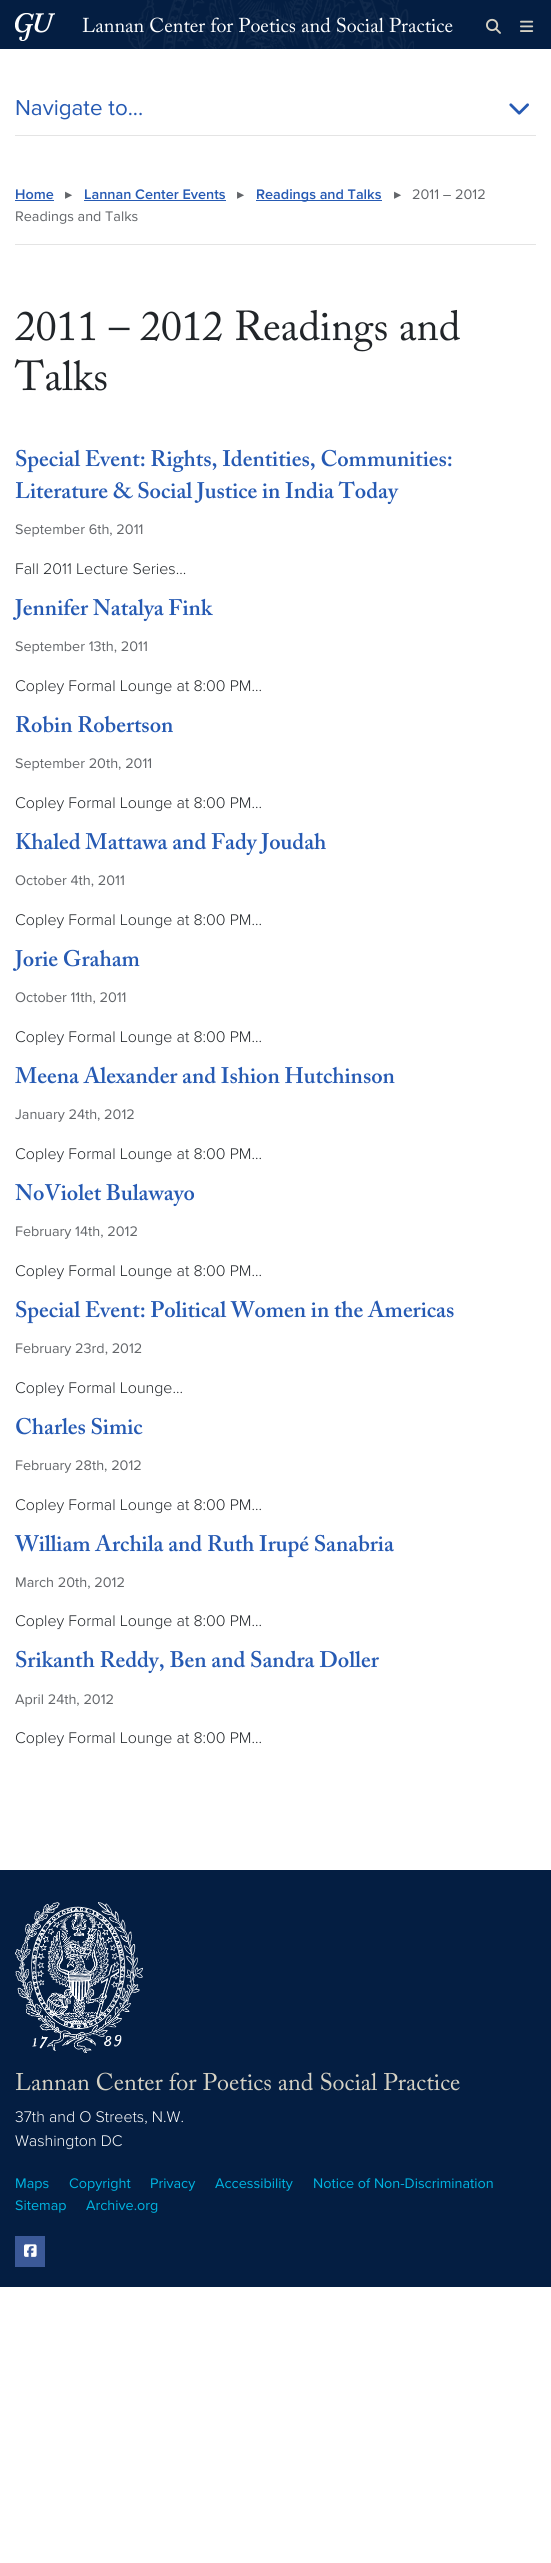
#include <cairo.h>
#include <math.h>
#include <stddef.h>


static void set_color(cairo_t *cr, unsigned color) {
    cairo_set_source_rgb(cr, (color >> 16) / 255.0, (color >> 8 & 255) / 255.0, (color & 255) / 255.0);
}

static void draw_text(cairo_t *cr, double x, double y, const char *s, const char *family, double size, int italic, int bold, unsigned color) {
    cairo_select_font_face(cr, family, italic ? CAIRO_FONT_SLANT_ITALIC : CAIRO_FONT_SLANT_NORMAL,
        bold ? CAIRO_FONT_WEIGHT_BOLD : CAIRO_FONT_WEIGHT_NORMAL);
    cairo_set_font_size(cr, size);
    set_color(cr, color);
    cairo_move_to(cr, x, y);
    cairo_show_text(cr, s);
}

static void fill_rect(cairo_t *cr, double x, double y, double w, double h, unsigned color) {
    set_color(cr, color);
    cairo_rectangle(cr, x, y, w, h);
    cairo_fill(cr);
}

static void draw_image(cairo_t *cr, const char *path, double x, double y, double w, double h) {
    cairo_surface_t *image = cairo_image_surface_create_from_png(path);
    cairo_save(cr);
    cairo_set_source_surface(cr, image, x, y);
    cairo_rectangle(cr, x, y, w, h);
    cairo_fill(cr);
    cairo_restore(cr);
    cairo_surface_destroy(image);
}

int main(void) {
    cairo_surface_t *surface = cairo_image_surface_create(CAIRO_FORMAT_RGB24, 551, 2563);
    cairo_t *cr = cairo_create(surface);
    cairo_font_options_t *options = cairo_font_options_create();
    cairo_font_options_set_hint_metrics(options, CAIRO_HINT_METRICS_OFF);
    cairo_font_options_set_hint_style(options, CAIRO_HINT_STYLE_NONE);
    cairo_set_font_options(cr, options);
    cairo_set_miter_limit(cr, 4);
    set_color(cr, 0xFFFFFF);
    cairo_paint(cr);
    fill_rect(cr, 0, 0, 551, 49, 0x041E42);
    draw_image(cr, "assets/img1.png", 124, 0, 290, 49);
    draw_image(cr, "assets/img2.png", 15, 13, 40, 28);
    draw_text(cr, 82, 32, "Lannan Center for Poetics and Social Practice", "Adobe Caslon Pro", 20, 0, 0, 0xFFFFFF);
    draw_image(cr, "assets/img3.png", 486, 18, 15, 16);
    draw_image(cr, "assets/img4.png", 520, 20, 14, 12);
    fill_rect(cr, 15, 135, 521, 1, 0xE4E4E4);
    draw_text(cr, 15, 115, "Navigate to...", "Proxima Nova", 22.4, 0, 0, 0x265AB3);
    draw_image(cr, "assets/img5.png", 509, 103, 20, 12);
    fill_rect(cr, 15, 244, 521, 1, 0xE4E4E4);
    draw_text(cr, 15, 199, "Home", "Proxima Nova SemiBold", 14.4, 0, 0, 0x265AB3);
    fill_rect(cr, 15, 200, 39, 1, 0x265AB3);
    draw_text(cr, 65, 199, "▸", "DejaVu Sans", 14.4, 0, 0, 0x63666A);
    draw_text(cr, 84, 199, "Lannan Center Events", "Proxima Nova SemiBold", 14.4, 0, 0, 0x265AB3);
    fill_rect(cr, 84, 200, 142, 1, 0x265AB3);
    draw_text(cr, 237, 199, "▸", "DejaVu Sans", 14.4, 0, 0, 0x63666A);
    fill_rect(cr, 256, 200, 126, 1, 0x265AB3);
    draw_text(cr, 256, 199, "Readings and Talks", "Proxima Nova SemiBold", 14.4, 0, 0, 0x265AB3);
    draw_text(cr, 394, 199, "▸", "DejaVu Sans", 14.4, 0, 0, 0x63666A);
    draw_text(cr, 412, 199, "2011 – 2012", "Proxima Nova", 14.4, 0, 0, 0x63666A);
    draw_text(cr, 15, 221, "Readings and Talks", "Proxima Nova", 14.4, 0, 0, 0x63666A);
    draw_text(cr, 15, 340, "2011 – 2012 Readings and", "Adobe Caslon Pro", 41.6, 0, 0, 0x212529);
    draw_text(cr, 15, 390, "Talks", "Adobe Caslon Pro", 41.6, 0, 0, 0x212529);
    draw_text(cr, 15, 466, "Special Event: Rights, Identities, Communities:", "Adobe Caslon Pro SemiBold", 22.4, 0, 0, 0x265AB3);
    draw_text(cr, 15, 498, "Literature & Social Justice in India Today", "Adobe Caslon Pro SemiBold", 22.4, 0, 0, 0x265AB3);
    draw_text(cr, 15, 534, "September 6th, 2011", "Proxima Nova", 14.4, 0, 0, 0x63666A);
    draw_text(cr, 15, 574, "Fall 2011 Lecture Series…", "Proxima Nova Light", 16, 0, 0, 0x212529);
    draw_text(cr, 15, 615, "Jennifer Natalya Fink", "Adobe Caslon Pro SemiBold", 22.4, 0, 0, 0x265AB3);
    draw_text(cr, 15, 651, "September 13th, 2011", "Proxima Nova", 14.4, 0, 0, 0x63666A);
    draw_text(cr, 15, 691, "Copley Formal Lounge at 8:00 PM…", "Proxima Nova Light", 16, 0, 0, 0x212529);
    draw_text(cr, 15, 732, "Robin Robertson", "Adobe Caslon Pro SemiBold", 22.4, 0, 0, 0x265AB3);
    draw_text(cr, 15, 768, "September 20th, 2011", "Proxima Nova", 14.4, 0, 0, 0x63666A);
    draw_text(cr, 15, 808, "Copley Formal Lounge at 8:00 PM…", "Proxima Nova Light", 16, 0, 0, 0x212529);
    draw_text(cr, 15, 849, "Khaled Mattawa and Fady Joudah", "Adobe Caslon Pro SemiBold", 22.4, 0, 0, 0x265AB3);
    draw_text(cr, 15, 885, "October 4th, 2011", "Proxima Nova", 14.4, 0, 0, 0x63666A);
    draw_text(cr, 15, 925, "Copley Formal Lounge at 8:00 PM…", "Proxima Nova Light", 16, 0, 0, 0x212529);
    draw_text(cr, 15, 966, "Jorie Graham", "Adobe Caslon Pro SemiBold", 22.4, 0, 0, 0x265AB3);
    draw_text(cr, 15, 1002, "October 11th, 2011", "Proxima Nova", 14.4, 0, 0, 0x63666A);
    draw_text(cr, 15, 1042, "Copley Formal Lounge at 8:00 PM…", "Proxima Nova Light", 16, 0, 0, 0x212529);
    draw_text(cr, 15, 1083, "Meena Alexander and Ishion Hutchinson", "Adobe Caslon Pro SemiBold", 22.4, 0, 0, 0x265AB3);
    draw_text(cr, 15, 1119, "January 24th, 2012", "Proxima Nova", 14.4, 0, 0, 0x63666A);
    draw_text(cr, 15, 1159, "Copley Formal Lounge at 8:00 PM…", "Proxima Nova Light", 16, 0, 0, 0x212529);
    draw_text(cr, 15, 1200, "NoViolet Bulawayo", "Adobe Caslon Pro SemiBold", 22.4, 0, 0, 0x265AB3);
    draw_text(cr, 15, 1236, "February 14th, 2012", "Proxima Nova", 14.4, 0, 0, 0x63666A);
    draw_text(cr, 15, 1276, "Copley Formal Lounge at 8:00 PM…", "Proxima Nova Light", 16, 0, 0, 0x212529);
    draw_text(cr, 15, 1317, "Special Event: Political Women in the Americas", "Adobe Caslon Pro SemiBold", 22.4, 0, 0, 0x265AB3);
    draw_text(cr, 15, 1353, "February 23rd, 2012", "Proxima Nova", 14.4, 0, 0, 0x63666A);
    draw_text(cr, 15, 1393, "Copley Formal Lounge…", "Proxima Nova Light", 16, 0, 0, 0x212529);
    draw_text(cr, 15, 1434, "Charles Simic", "Adobe Caslon Pro SemiBold", 22.4, 0, 0, 0x265AB3);
    draw_text(cr, 15, 1470, "February 28th, 2012", "Proxima Nova", 14.4, 0, 0, 0x63666A);
    draw_text(cr, 15, 1510, "Copley Formal Lounge at 8:00 PM…", "Proxima Nova Light", 16, 0, 0, 0x212529);
    draw_text(cr, 15, 1551, "William Archila and Ruth Irupé Sanabria", "Adobe Caslon Pro SemiBold", 22.4, 0, 0, 0x265AB3);
    draw_text(cr, 15, 1587, "March 20th, 2012", "Proxima Nova", 14.4, 0, 0, 0x63666A);
    draw_text(cr, 15, 1626, "Copley Formal Lounge at 8:00 PM…", "Proxima Nova Light", 16, 0, 0, 0x212529);
    draw_text(cr, 15, 1667, "Srikanth Reddy, Ben and Sandra Doller", "Adobe Caslon Pro SemiBold", 22.4, 0, 0, 0x265AB3);
    draw_text(cr, 15, 1704, "April 24th, 2012", "Proxima Nova", 14.4, 0, 0, 0x63666A);
    draw_text(cr, 15, 1743, "Copley Formal Lounge at 8:00 PM…", "Proxima Nova Light", 16, 0, 0, 0x212529);
    fill_rect(cr, 0, 1870, 551, 417, 0x041E42);
    draw_image(cr, "assets/img6.png", 15, 1902, 128, 151);
    draw_text(cr, 15, 2090, "Lannan Center for Poetics and Social Practice", "Adobe Caslon Pro", 24, 0, 0, 0xD6D2C4);
    draw_text(cr, 15, 2122, "37th and O Streets, N.W.", "Proxima Nova Light", 16, 0, 0, 0xFFFFFF);
    draw_text(cr, 15, 2146, "Washington DC", "Proxima Nova Light", 16, 0, 0, 0xFFFFFF);
    draw_text(cr, 15, 2188, "Maps", "Proxima Nova", 14.4, 0, 0, 0x00B5E2);
    draw_text(cr, 69, 2188, "Copyright", "Proxima Nova", 14.4, 0, 0, 0x00B5E2);
    draw_text(cr, 150, 2188, "Privacy", "Proxima Nova", 14.4, 0, 0, 0x00B5E2);
    draw_text(cr, 215, 2188, "Accessibility", "Proxima Nova", 14.4, 0, 0, 0x00B5E2);
    draw_text(cr, 313, 2188, "Notice of Non-Discrimination", "Proxima Nova", 14.4, 0, 0, 0x00B5E2);
    draw_text(cr, 15, 2210, "Sitemap", "Proxima Nova", 14.4, 0, 0, 0x00B5E2);
    draw_text(cr, 86, 2210, "Archive.org", "Proxima Nova", 14.4, 0, 0, 0x00B5E2);
    fill_rect(cr, 15, 2236, 30, 31, 0x3B5998);
    draw_image(cr, "assets/img7.png", 24, 2244, 13, 13);
    cairo_surface_write_to_png(surface, "output.png");
    cairo_font_options_destroy(options);
    cairo_destroy(cr);
    cairo_surface_destroy(surface);
    return 0;
}
